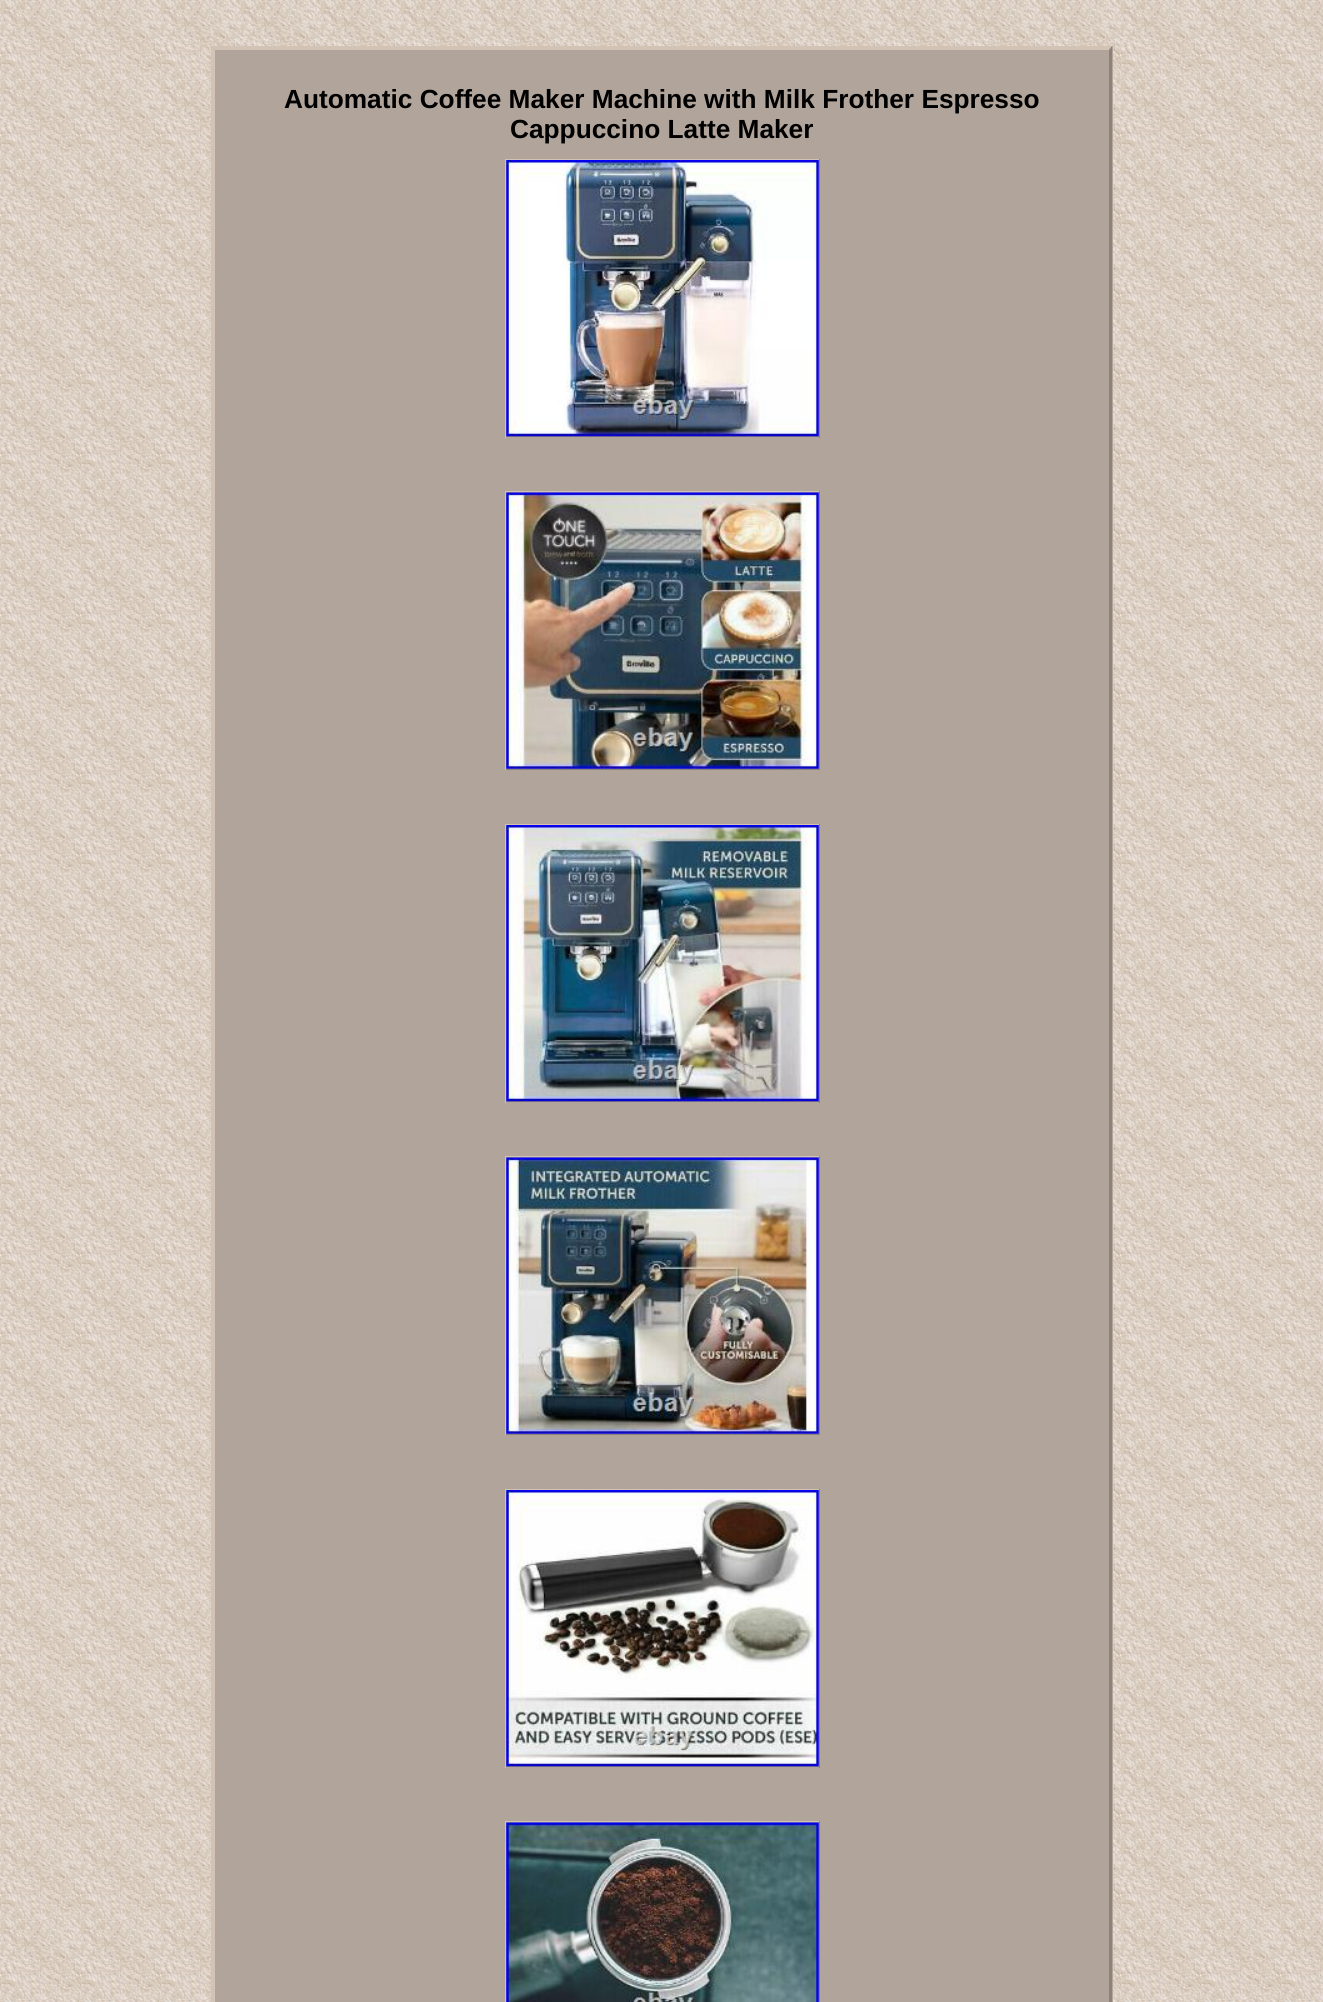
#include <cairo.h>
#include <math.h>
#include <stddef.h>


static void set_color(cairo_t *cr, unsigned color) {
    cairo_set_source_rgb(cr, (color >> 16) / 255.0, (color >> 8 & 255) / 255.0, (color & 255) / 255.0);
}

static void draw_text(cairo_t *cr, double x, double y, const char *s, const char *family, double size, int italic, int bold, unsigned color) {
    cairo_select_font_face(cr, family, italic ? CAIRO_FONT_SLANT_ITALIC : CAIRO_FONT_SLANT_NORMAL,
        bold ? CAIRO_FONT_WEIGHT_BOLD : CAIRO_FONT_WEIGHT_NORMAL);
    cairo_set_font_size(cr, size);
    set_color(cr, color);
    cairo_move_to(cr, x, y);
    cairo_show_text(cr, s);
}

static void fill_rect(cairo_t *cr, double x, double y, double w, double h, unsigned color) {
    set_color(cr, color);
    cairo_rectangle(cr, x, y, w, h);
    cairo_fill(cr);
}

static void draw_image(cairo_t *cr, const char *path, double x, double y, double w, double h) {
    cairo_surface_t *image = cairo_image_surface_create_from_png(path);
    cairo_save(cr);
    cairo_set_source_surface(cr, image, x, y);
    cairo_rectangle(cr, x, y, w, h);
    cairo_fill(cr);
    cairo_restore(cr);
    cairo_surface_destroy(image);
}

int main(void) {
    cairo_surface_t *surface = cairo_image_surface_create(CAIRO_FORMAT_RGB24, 1323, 2002);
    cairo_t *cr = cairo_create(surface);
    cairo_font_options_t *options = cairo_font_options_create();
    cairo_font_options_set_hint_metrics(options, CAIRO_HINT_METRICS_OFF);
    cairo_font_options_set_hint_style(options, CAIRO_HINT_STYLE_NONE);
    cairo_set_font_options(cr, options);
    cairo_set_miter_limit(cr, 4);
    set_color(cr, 0xFFFFFF);
    cairo_paint(cr);
    draw_image(cr, "assets/img1.png", 0, 0, 1323, 2002);
    fill_rect(cr, 211, 46, 902, 1956, 0xB1A49B);
    set_color(cr, 0xD3C3B4);
    cairo_new_path(cr);
    cairo_move_to(cr, 211, 46);
    cairo_line_to(cr, 1112, 46);
    cairo_line_to(cr, 1109, 50);
    cairo_line_to(cr, 215, 50);
    cairo_close_path(cr);
    cairo_fill(cr);
    set_color(cr, 0x8D8278);
    cairo_new_path(cr);
    cairo_move_to(cr, 1112, 46);
    cairo_line_to(cr, 1112, 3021);
    cairo_line_to(cr, 1109, 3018);
    cairo_line_to(cr, 1109, 50);
    cairo_close_path(cr);
    cairo_fill(cr);
    set_color(cr, 0xD3C3B4);
    cairo_new_path(cr);
    cairo_move_to(cr, 211, 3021);
    cairo_line_to(cr, 211, 46);
    cairo_line_to(cr, 215, 50);
    cairo_line_to(cr, 215, 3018);
    cairo_close_path(cr);
    cairo_fill(cr);
    draw_text(cr, 284, 108, "Automatic Coffee Maker Machine with Milk Frother Espresso", "Liberation Sans", 26.25, 0, 1, 0x000000);
    draw_text(cr, 510, 138, "Cappuccino Latte Maker", "Liberation Sans", 26.25, 0, 1, 0x000000);
    fill_rect(cr, 505, 159, 315, 1, 0xD3C3B4);
    fill_rect(cr, 819, 159, 1, 279, 0x8D8278);
    fill_rect(cr, 505, 436, 315, 1, 0x8D8278);
    fill_rect(cr, 505, 159, 1, 279, 0xD3C3B4);
    draw_image(cr, "assets/img2.png", 506, 160, 313, 277);
    fill_rect(cr, 505, 491, 315, 1, 0xD3C3B4);
    fill_rect(cr, 819, 491, 1, 279, 0x8D8278);
    fill_rect(cr, 505, 769, 315, 1, 0x8D8278);
    fill_rect(cr, 505, 491, 1, 279, 0xD3C3B4);
    draw_image(cr, "assets/img3.png", 506, 492, 313, 277);
    fill_rect(cr, 505, 824, 315, 1, 0xD3C3B4);
    fill_rect(cr, 819, 824, 1, 279, 0x8D8278);
    fill_rect(cr, 505, 1101, 315, 1, 0x8D8278);
    fill_rect(cr, 505, 824, 1, 279, 0xD3C3B4);
    draw_image(cr, "assets/img4.png", 506, 825, 313, 277);
    fill_rect(cr, 505, 1156, 315, 1, 0xD3C3B4);
    fill_rect(cr, 819, 1156, 1, 279, 0x8D8278);
    fill_rect(cr, 505, 1434, 315, 1, 0x8D8278);
    fill_rect(cr, 505, 1156, 1, 279, 0xD3C3B4);
    draw_image(cr, "assets/img5.png", 506, 1157, 313, 277);
    fill_rect(cr, 505, 1489, 315, 1, 0xD3C3B4);
    fill_rect(cr, 819, 1489, 1, 279, 0x8D8278);
    fill_rect(cr, 505, 1766, 315, 1, 0x8D8278);
    fill_rect(cr, 505, 1489, 1, 279, 0xD3C3B4);
    draw_image(cr, "assets/img6.png", 506, 1490, 313, 277);
    fill_rect(cr, 505, 1821, 315, 1, 0xD3C3B4);
    fill_rect(cr, 505, 1821, 1, 181, 0xD3C3B4);
    draw_image(cr, "assets/img7.png", 506, 1822, 313, 180);
    fill_rect(cr, 819, 1821, 1, 181, 0x8D8278);
    cairo_surface_write_to_png(surface, "output.png");
    cairo_font_options_destroy(options);
    cairo_destroy(cr);
    cairo_surface_destroy(surface);
    return 0;
}
